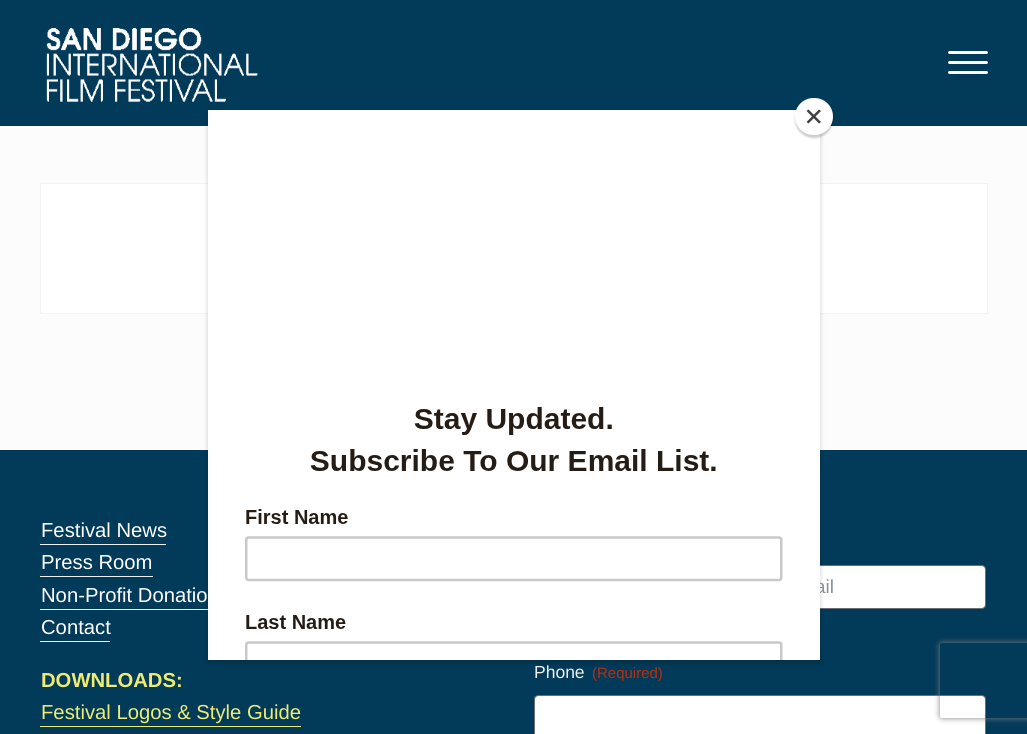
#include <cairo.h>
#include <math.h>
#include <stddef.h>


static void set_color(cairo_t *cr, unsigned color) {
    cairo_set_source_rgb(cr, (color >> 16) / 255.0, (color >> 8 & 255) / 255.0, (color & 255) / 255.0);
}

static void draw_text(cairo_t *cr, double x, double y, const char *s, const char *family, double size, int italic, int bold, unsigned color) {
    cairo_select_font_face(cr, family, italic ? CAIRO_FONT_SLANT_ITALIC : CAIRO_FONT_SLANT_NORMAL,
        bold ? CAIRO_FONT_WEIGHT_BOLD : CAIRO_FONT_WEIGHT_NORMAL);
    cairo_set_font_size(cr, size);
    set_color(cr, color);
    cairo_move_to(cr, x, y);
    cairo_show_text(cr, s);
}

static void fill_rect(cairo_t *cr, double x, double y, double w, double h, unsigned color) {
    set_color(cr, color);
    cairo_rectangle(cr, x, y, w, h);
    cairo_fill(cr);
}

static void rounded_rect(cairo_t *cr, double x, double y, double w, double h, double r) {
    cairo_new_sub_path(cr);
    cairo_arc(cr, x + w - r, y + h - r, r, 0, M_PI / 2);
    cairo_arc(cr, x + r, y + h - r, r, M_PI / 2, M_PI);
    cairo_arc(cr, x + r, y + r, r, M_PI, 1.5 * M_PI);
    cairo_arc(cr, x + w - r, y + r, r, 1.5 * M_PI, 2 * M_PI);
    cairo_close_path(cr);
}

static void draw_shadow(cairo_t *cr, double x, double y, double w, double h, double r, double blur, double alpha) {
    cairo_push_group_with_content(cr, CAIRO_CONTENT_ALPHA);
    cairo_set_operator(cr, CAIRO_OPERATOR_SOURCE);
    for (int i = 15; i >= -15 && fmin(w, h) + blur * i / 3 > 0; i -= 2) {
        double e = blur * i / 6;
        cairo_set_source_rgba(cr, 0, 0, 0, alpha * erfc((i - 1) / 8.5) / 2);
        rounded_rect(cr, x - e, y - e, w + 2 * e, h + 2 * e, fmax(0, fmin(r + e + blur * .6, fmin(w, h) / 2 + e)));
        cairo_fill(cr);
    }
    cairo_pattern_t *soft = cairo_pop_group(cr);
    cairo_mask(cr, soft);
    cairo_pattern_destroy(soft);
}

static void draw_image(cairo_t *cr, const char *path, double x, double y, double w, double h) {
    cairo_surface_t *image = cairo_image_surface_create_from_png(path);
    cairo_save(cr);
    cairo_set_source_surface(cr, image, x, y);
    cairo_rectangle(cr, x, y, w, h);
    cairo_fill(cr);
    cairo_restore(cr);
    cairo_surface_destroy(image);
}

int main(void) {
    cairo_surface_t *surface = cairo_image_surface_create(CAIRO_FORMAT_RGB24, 1027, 734);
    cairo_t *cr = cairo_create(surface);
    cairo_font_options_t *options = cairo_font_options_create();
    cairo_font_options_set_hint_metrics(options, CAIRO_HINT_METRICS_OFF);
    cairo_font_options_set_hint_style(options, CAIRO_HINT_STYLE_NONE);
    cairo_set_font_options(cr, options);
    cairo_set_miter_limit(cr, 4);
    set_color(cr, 0xFCFCFC);
    cairo_paint(cr);
    fill_rect(cr, 0, 0, 1027, 126, 0x023A59);
    set_color(cr, 0xFFFFFF);
    cairo_rectangle(cr, 40.5, 183.5, 947, 130);
    cairo_fill_preserve(cr);
    set_color(cr, 0xF3F3F4);
    cairo_set_line_width(cr, 1);
    cairo_stroke(cr);
    fill_rect(cr, 0, 450, 1027, 284, 0x023A59);
    fill_rect(cr, 40, 609, 168, 1, 0xF0F0F0);
    set_color(cr, 0xFFFFFF);
    rounded_rect(cr, 771, 566, 214, 42, 2.5);
    cairo_fill(cr);
    rounded_rect(cr, 770.5, 565.5, 215, 43, 3.5);
    set_color(cr, 0x686E77);
    cairo_stroke(cr);
    set_color(cr, 0x000000);
    draw_shadow(cr, 208, 113, 612, 550, 0, 2.5, 0.2);
    draw_text(cr, 815, 593, "ail", "Liberation Sans", 19, 0, 0, 0x88919B);
    draw_image(cr, "assets/img1.png", 208, 110, 612, 550);
    set_color(cr, 0x000000);
    draw_shadow(cr, 795, 100, 38, 38, 19, 1, 0.2);
    set_color(cr, 0xFFFFFF);
    rounded_rect(cr, 795, 98, 38, 37, 18.5);
    cairo_fill(cr);
    set_color(cr, 0x414141);
    cairo_new_path(cr);
    cairo_move_to(cr, 819, 109.5);
    cairo_line_to(cr, 821, 111);
    cairo_line_to(cr, 808.5, 123.5);
    cairo_line_to(cr, 806.5, 122);
    cairo_close_path(cr);
    cairo_fill(cr);
    cairo_new_path(cr);
    cairo_move_to(cr, 806.5, 111);
    cairo_line_to(cr, 808.5, 109.5);
    cairo_line_to(cr, 821, 122);
    cairo_line_to(cr, 819, 123.5);
    cairo_close_path(cr);
    cairo_fill(cr);
    draw_image(cr, "assets/img2.png", 46, 28, 212, 74);
    set_color(cr, 0xFFFFFF);
    rounded_rect(cr, 948, 61, 40, 3, 1.5);
    cairo_fill(cr);
    rounded_rect(cr, 948, 51, 40, 3, 1.5);
    cairo_fill(cr);
    rounded_rect(cr, 948, 71, 40, 3, 1.5);
    cairo_fill(cr);
    draw_text(cr, 41, 537, "Festival News", "Liberation Sans", 20.25, 0, 0, 0xFFFFFF);
    fill_rect(cr, 40, 544, 126, 1, 0xF0F0F0);
    draw_text(cr, 41, 569, "Press Room", "Liberation Sans", 20.25, 0, 0, 0xFFFFFF);
    fill_rect(cr, 40, 576, 113, 1, 0xF0F0F0);
    draw_text(cr, 41, 602, "Non-Profit Donatio", "Liberation Sans", 20.25, 0, 0, 0xFFFFFF);
    draw_text(cr, 41, 634, "Contact", "Liberation Sans", 20.25, 0, 0, 0xFFFFFF);
    fill_rect(cr, 40, 641, 70, 1, 0xF0F0F0);
    draw_text(cr, 41, 687, "DOWNLOADS:", "Liberation Sans", 20.25, 0, 1, 0xF0EC73);
    draw_text(cr, 41, 719, "Festival Logos & Style Guide", "Liberation Sans", 20.25, 0, 0, 0xF0EC73);
    fill_rect(cr, 40, 726, 261, 1, 0xF0EC73);
    draw_text(cr, 534, 678, "Phone", "Liberation Sans", 17.5, 0, 0, 0xF0F0F0);
    draw_text(cr, 592, 678, "(Required)", "Liberation Sans", 15, 0, 0, 0xC02B0A);
    set_color(cr, 0xFFFFFF);
    rounded_rect(cr, 535, 696, 450, 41, 2.5);
    cairo_fill(cr);
    rounded_rect(cr, 534.5, 695.5, 451, 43, 3.5);
    set_color(cr, 0x686E77);
    cairo_stroke(cr);
    cairo_save(cr);
    cairo_set_fill_rule(cr, CAIRO_FILL_RULE_EVEN_ODD);
    cairo_new_path(cr);
    cairo_move_to(cr, 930, 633);
    cairo_line_to(cr, 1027, 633);
    cairo_line_to(cr, 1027, 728);
    cairo_line_to(cr, 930, 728);
    cairo_close_path(cr);
    cairo_move_to(cr, 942.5, 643);
    cairo_line_to(cr, 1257.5, 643);
    cairo_curve_to(cr, 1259, 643, 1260, 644, 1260, 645.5);
    cairo_line_to(cr, 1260, 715.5);
    cairo_curve_to(cr, 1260, 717, 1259, 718, 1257.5, 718);
    cairo_line_to(cr, 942.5, 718);
    cairo_curve_to(cr, 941, 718, 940, 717, 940, 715.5);
    cairo_line_to(cr, 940, 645.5);
    cairo_curve_to(cr, 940, 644, 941, 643, 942.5, 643);
    cairo_close_path(cr);
    cairo_clip(cr);
    set_color(cr, 0x808080);
    draw_shadow(cr, 940, 643, 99, 75, 2.5, 3, 1);
    cairo_restore(cr);
    cairo_surface_write_to_png(surface, "output.png");
    cairo_font_options_destroy(options);
    cairo_destroy(cr);
    cairo_surface_destroy(surface);
    return 0;
}
